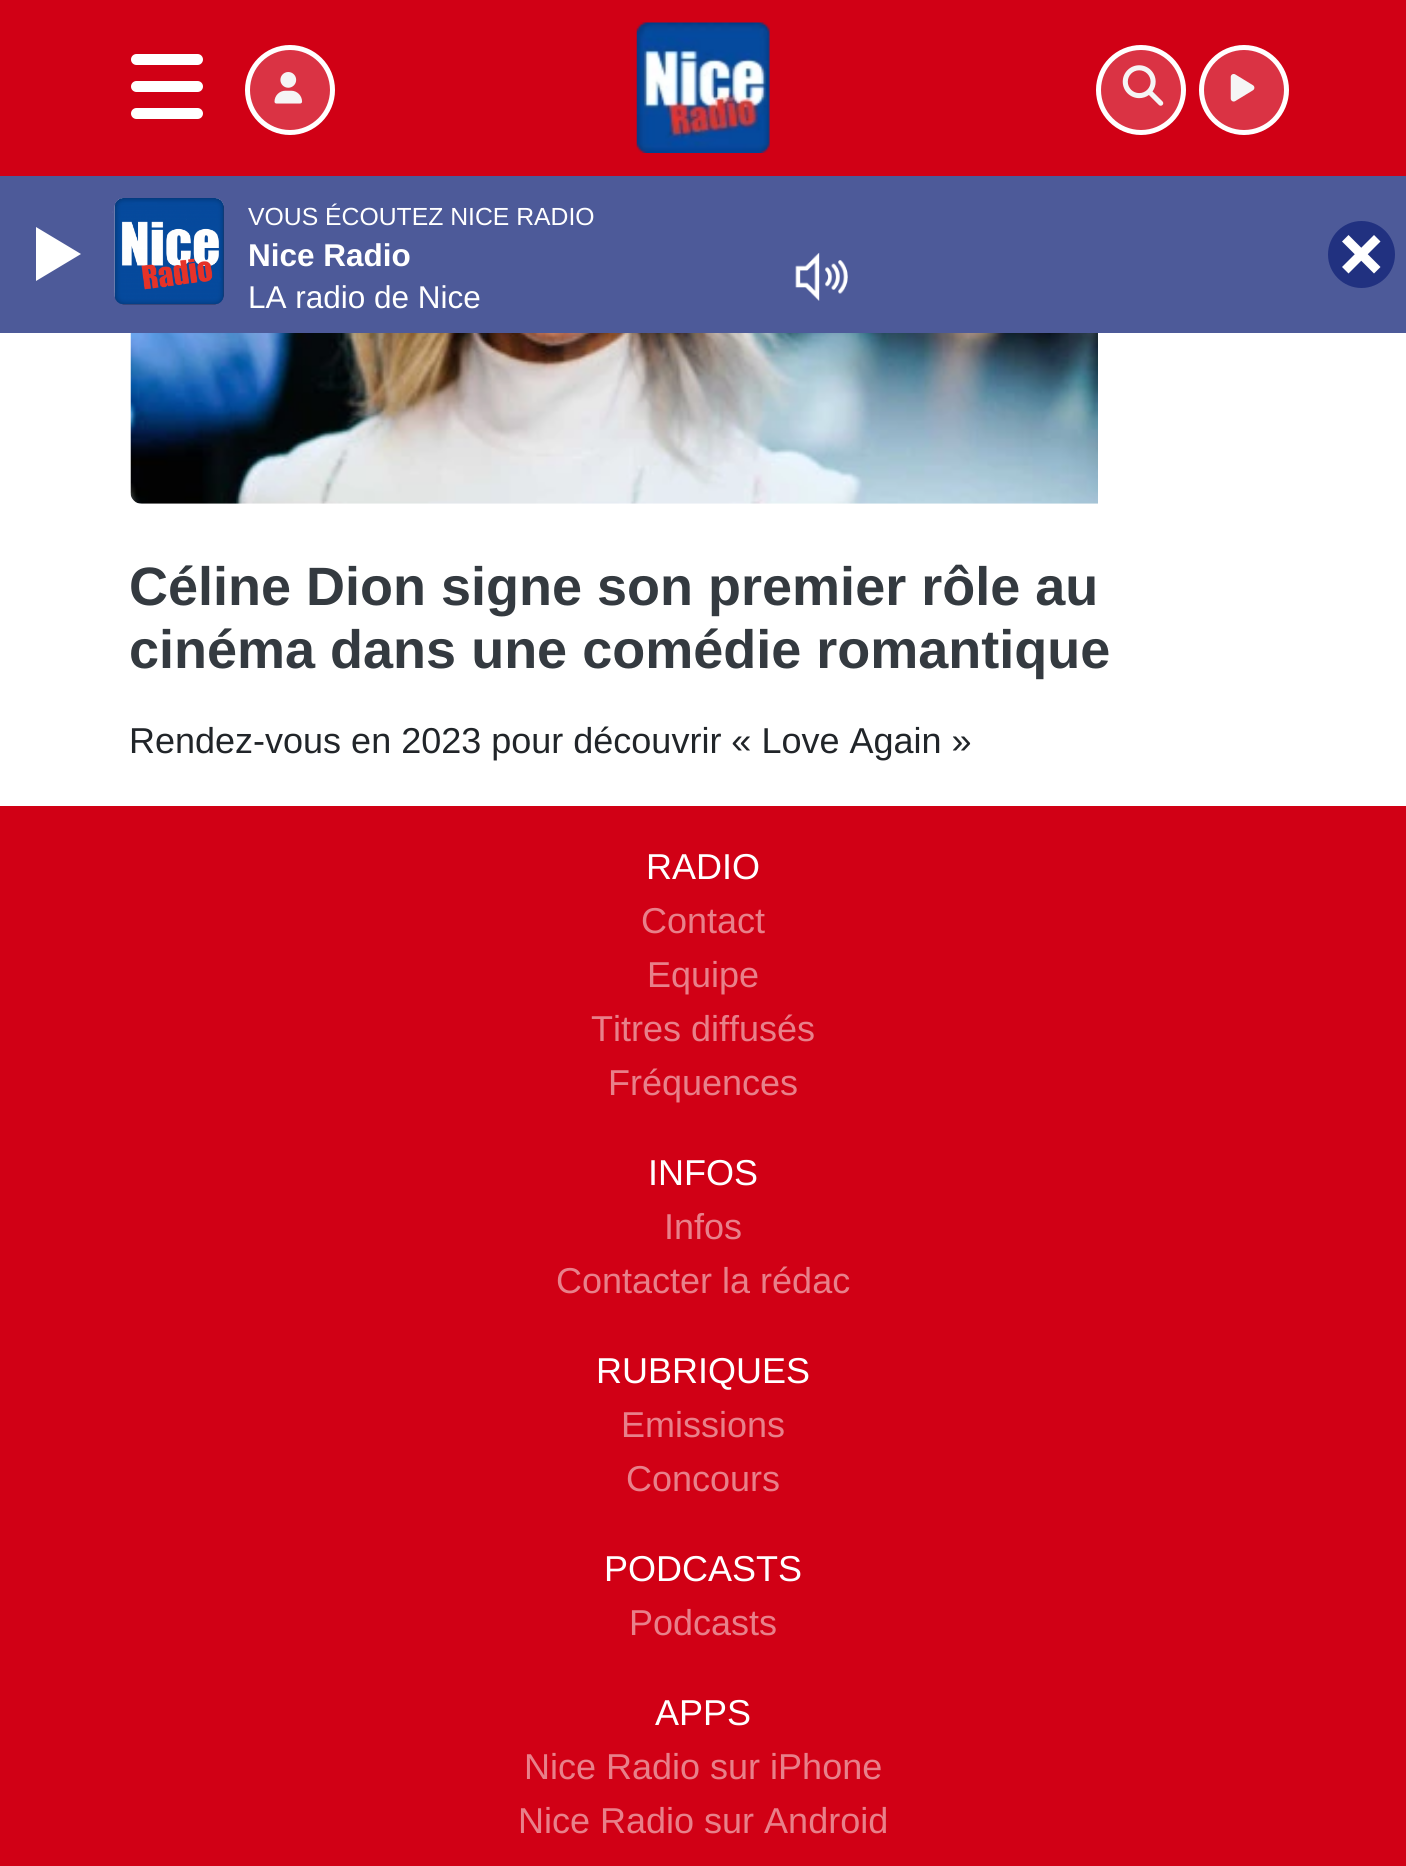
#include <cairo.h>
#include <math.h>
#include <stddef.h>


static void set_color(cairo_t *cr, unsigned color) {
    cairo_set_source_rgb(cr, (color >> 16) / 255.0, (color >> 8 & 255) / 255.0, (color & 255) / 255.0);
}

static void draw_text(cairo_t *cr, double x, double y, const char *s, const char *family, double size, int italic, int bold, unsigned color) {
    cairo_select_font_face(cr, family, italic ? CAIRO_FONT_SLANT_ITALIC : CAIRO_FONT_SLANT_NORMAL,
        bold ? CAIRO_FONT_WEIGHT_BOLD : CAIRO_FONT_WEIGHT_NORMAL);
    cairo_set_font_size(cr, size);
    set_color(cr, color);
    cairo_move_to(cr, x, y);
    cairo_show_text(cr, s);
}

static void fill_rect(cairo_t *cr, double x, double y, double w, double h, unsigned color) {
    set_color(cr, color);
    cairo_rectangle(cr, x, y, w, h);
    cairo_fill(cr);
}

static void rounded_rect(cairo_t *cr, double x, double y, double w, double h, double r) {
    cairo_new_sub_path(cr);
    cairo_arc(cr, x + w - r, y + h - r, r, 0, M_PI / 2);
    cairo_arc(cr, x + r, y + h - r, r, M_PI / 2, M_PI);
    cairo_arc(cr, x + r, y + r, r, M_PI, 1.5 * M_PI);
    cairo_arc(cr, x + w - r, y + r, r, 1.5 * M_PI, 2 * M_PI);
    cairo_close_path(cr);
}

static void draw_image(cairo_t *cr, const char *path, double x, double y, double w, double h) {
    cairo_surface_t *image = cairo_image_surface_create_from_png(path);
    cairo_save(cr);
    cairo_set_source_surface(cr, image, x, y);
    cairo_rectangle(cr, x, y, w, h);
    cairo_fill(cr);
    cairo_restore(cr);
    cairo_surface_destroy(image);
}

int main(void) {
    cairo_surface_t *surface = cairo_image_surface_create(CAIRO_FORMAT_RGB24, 1406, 1866);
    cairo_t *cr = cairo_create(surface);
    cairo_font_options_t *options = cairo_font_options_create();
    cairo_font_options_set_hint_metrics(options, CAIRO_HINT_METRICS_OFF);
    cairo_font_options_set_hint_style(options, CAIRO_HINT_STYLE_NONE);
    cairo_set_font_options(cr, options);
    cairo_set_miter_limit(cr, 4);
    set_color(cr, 0xFFFFFF);
    cairo_paint(cr);
    fill_rect(cr, 0, 176, 1406, 157, 0x4D5A99);
    draw_image(cr, "assets/img1.png", 112, 198, 112, 107);
    draw_text(cr, 248, 225, "VOUS ÉCOUTEZ NICE RADIO", "Liberation Sans", 24.75, 0, 0, 0xFFFFFF);
    draw_text(cr, 248, 266, "Nice Radio", "Liberation Sans", 31.5, 0, 1, 0xFFFFFF);
    draw_text(cr, 248, 308, "LA radio de Nice", "Liberation Sans", 31.5, 0, 0, 0xFFFFFF);
    cairo_new_path(cr);
    cairo_move_to(cr, 36, 281);
    cairo_line_to(cr, 36, 227);
    cairo_line_to(cr, 81, 254);
    cairo_close_path(cr);
    cairo_fill(cr);
    draw_image(cr, "assets/img2.png", 795, 252, 53, 49);
    set_color(cr, 0x213180);
    cairo_arc(cr, 1361.5, 254.5, 33.5, 0, 2 * M_PI);
    cairo_fill(cr);
    set_color(cr, 0xFFFFFF);
    cairo_new_path(cr);
    cairo_move_to(cr, 1348.5, 235);
    cairo_line_to(cr, 1380.5, 267);
    cairo_line_to(cr, 1374, 273.5);
    cairo_line_to(cr, 1342, 241.5);
    cairo_close_path(cr);
    cairo_fill(cr);
    cairo_new_path(cr);
    cairo_move_to(cr, 1342, 267);
    cairo_line_to(cr, 1374, 235);
    cairo_line_to(cr, 1380.5, 241.5);
    cairo_line_to(cr, 1348.5, 273.5);
    cairo_close_path(cr);
    cairo_fill(cr);
    fill_rect(cr, 0, 0, 1406, 176, 0xD10015);
    set_color(cr, 0xFFFFFF);
    rounded_rect(cr, 131, 54, 72, 11, 5.5);
    cairo_fill(cr);
    rounded_rect(cr, 131, 81, 72, 11, 5.5);
    cairo_fill(cr);
    rounded_rect(cr, 131, 108, 72, 11, 5.5);
    cairo_fill(cr);
    set_color(cr, 0xDA3344);
    cairo_arc(cr, 290, 90, 42.5, 0, 2 * M_PI);
    cairo_fill_preserve(cr);
    set_color(cr, 0xFFFFFF);
    cairo_set_line_width(cr, 5);
    cairo_stroke(cr);
    draw_image(cr, "assets/img3.png", 274, 72, 29, 32);
    draw_image(cr, "assets/img4.png", 636, 22, 134, 131);
    set_color(cr, 0xDA3344);
    cairo_arc(cr, 1141, 90, 42.5, 0, 2 * M_PI);
    cairo_fill_preserve(cr);
    set_color(cr, 0xFFFFFF);
    cairo_stroke(cr);
    draw_image(cr, "assets/img5.png", 1122, 65, 42, 41);
    set_color(cr, 0xDA3344);
    cairo_arc(cr, 1244, 90, 42.5, 0, 2 * M_PI);
    cairo_fill_preserve(cr);
    set_color(cr, 0xFFFFFF);
    cairo_stroke(cr);
    draw_image(cr, "assets/img6.png", 1230, 74, 25, 28);
    draw_image(cr, "assets/img7.png", 130, 333, 968, 171);
    draw_text(cr, 129, 605, "Céline Dion signe son premier rôle au", "Liberation Sans", 54, 0, 1, 0x343A40);
    draw_text(cr, 129, 668, "cinéma dans une comédie romantique", "Liberation Sans", 54, 0, 1, 0x343A40);
    draw_text(cr, 129, 753, "Rendez-vous en 2023 pour découvrir « Love Again »", "Liberation Sans", 36, 0, 0, 0x212529);
    fill_rect(cr, 0, 806, 1406, 1060, 0xD10015);
    draw_text(cr, 646, 879, "RADIO", "Liberation Sans", 36, 0, 0, 0xFFFFFF);
    draw_text(cr, 641, 933, "Contact", "Liberation Sans", 36, 0, 0, 0xE8808A);
    draw_text(cr, 647, 987, "Equipe", "Liberation Sans", 36, 0, 0, 0xE8808A);
    draw_text(cr, 591, 1041, "Titres diffusés", "Liberation Sans", 36, 0, 0, 0xE8808A);
    draw_text(cr, 608, 1095, "Fréquences", "Liberation Sans", 36, 0, 0, 0xE8808A);
    draw_text(cr, 648, 1185, "INFOS", "Liberation Sans", 36, 0, 0, 0xFFFFFF);
    draw_text(cr, 664, 1239, "Infos", "Liberation Sans", 36, 0, 0, 0xE8808A);
    draw_text(cr, 556, 1293, "Contacter la rédac", "Liberation Sans", 36, 0, 0, 0xE8808A);
    draw_text(cr, 596, 1383, "RUBRIQUES", "Liberation Sans", 36, 0, 0, 0xFFFFFF);
    draw_text(cr, 621, 1437, "Emissions", "Liberation Sans", 36, 0, 0, 0xE8808A);
    draw_text(cr, 626, 1491, "Concours", "Liberation Sans", 36, 0, 0, 0xE8808A);
    draw_text(cr, 604, 1581, "PODCASTS", "Liberation Sans", 36, 0, 0, 0xFFFFFF);
    draw_text(cr, 629, 1635, "Podcasts", "Liberation Sans", 36, 0, 0, 0xE8808A);
    draw_text(cr, 655, 1725, "APPS", "Liberation Sans", 36, 0, 0, 0xFFFFFF);
    draw_text(cr, 524, 1779, "Nice Radio sur iPhone", "Liberation Sans", 36, 0, 0, 0xE8808A);
    draw_text(cr, 518, 1833, "Nice Radio sur Android", "Liberation Sans", 36, 0, 0, 0xE8808A);
    cairo_surface_write_to_png(surface, "output.png");
    cairo_font_options_destroy(options);
    cairo_destroy(cr);
    cairo_surface_destroy(surface);
    return 0;
}
